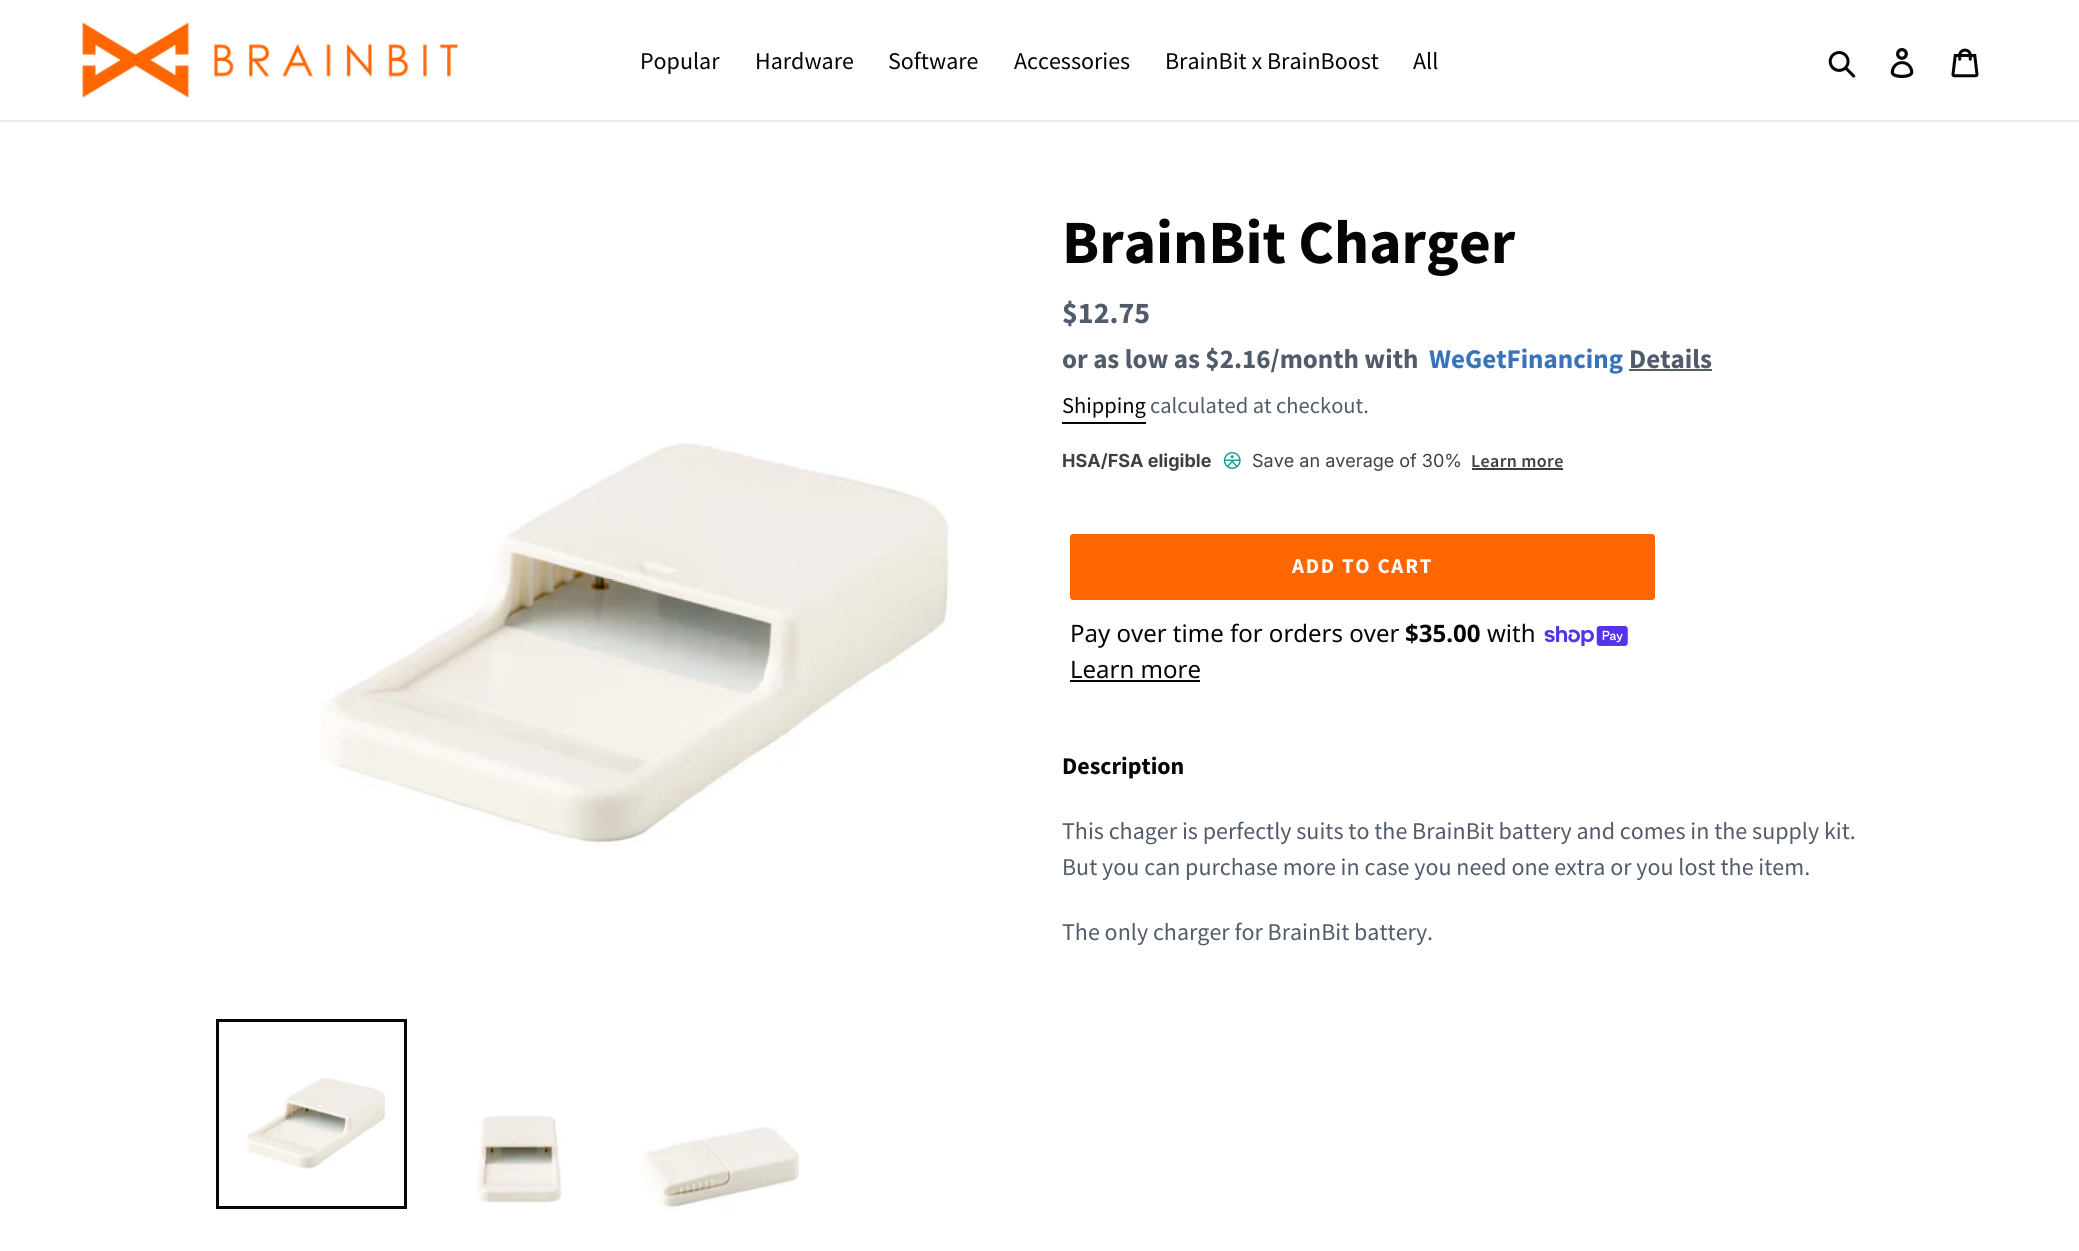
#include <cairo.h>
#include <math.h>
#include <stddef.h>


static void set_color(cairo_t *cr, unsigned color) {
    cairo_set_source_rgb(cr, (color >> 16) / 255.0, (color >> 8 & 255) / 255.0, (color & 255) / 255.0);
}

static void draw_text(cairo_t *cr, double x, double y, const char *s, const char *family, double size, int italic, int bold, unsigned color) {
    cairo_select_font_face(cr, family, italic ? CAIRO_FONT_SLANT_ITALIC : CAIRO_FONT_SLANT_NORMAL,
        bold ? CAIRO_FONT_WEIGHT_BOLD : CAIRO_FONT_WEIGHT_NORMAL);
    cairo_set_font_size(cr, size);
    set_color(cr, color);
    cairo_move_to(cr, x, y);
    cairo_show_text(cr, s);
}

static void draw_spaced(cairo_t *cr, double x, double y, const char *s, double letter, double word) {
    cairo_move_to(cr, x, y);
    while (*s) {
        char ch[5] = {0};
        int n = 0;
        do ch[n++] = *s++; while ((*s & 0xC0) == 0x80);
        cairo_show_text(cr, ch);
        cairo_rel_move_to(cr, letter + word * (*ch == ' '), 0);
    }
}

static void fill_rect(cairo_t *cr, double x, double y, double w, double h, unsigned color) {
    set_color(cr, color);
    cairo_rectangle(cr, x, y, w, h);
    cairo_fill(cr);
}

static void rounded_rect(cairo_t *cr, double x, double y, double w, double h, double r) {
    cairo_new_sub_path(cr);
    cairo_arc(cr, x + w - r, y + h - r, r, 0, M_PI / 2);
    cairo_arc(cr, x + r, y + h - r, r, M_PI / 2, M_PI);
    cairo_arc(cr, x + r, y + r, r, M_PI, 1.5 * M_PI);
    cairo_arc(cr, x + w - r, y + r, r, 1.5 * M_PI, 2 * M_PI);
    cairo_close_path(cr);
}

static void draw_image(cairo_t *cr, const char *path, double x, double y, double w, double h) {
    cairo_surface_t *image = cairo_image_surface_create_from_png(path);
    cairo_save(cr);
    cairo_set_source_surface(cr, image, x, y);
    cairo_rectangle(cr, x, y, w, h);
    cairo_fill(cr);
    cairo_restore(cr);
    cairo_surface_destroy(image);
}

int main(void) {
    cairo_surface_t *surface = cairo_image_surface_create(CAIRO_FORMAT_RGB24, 2079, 1251);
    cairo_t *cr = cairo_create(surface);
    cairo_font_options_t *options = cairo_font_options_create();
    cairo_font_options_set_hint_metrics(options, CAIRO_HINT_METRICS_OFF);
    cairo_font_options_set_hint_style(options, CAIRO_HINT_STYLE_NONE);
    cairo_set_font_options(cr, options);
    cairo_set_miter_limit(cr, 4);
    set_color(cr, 0xFFFFFF);
    cairo_paint(cr);
    fill_rect(cr, 0, 120, 2079, 2, 0xEBEBEB);
    draw_image(cr, "assets/img1.png", 82, 22, 376, 76);
    draw_text(cr, 640, 69, "Popular", "Source Sans Pro", 24, 0, 0, 0x050505);
    draw_text(cr, 755, 69, "Hardware", "Source Sans Pro", 24, 0, 0, 0x050505);
    draw_text(cr, 888, 69, "Software", "Source Sans Pro", 24, 0, 0, 0x050505);
    draw_text(cr, 1014, 69, "Accessories", "Source Sans Pro", 24, 0, 0, 0x050505);
    draw_text(cr, 1165, 69, "BrainBit x BrainBoost", "Source Sans Pro", 24, 0, 0, 0x050505);
    draw_text(cr, 1413, 69, "All", "Source Sans Pro", 24, 0, 0, 0x050505);
    draw_image(cr, "assets/img2.png", 1828, 51, 28, 27);
    draw_image(cr, "assets/img3.png", 1890, 48, 24, 30);
    draw_image(cr, "assets/img4.png", 1951, 48, 28, 30);
    draw_image(cr, "assets/img5.png", 320, 442, 631, 404);
    cairo_rectangle(cr, 217.5, 1020.5, 188, 187);
    cairo_set_line_width(cr, 3);
    cairo_stroke(cr);
    draw_image(cr, "assets/img6.png", 244, 1077, 141, 92);
    draw_image(cr, "assets/img7.png", 475, 1115, 87, 89);
    draw_image(cr, "assets/img8.png", 641, 1127, 158, 85);
    draw_text(cr, 1062, 263, "BrainBit Charger", "Source Sans Pro", 61.5, 0, 1, 0x050505);
    draw_text(cr, 1062, 323, "$12.75", "Source Sans Pro", 30, 0, 1, 0x515B69);
    draw_text(cr, 1062, 368, "or as low as $2.16/month with", "Source Sans Pro", 27, 0, 1, 0x515B69);
    draw_text(cr, 1429, 368, "WeGetFinancing", "Source Sans Pro", 27, 0, 1, 0x3973B9);
    fill_rect(cr, 1629, 369, 83, 2, 0x515B69);
    draw_text(cr, 1629, 368, "Details", "Source Sans Pro", 27, 0, 1, 0x515B69);
    draw_text(cr, 1062, 413, "Shipping", "Source Sans Pro", 22.5, 0, 0, 0x050505);
    fill_rect(cr, 1062, 422, 84, 2, 0x050505);
    draw_text(cr, 1150, 413, "calculated at checkout.", "Source Sans Pro", 22.5, 0, 0, 0x515B69);
    draw_text(cr, 1062, 467, "HSA/FSA eligible", "Inter", 18, 0, 1, 0x404040);
    draw_image(cr, "assets/img9.png", 1223, 452, 18, 17);
    draw_text(cr, 1252, 467, "Save an average of 30%", "Inter", 18, 0, 0, 0x404040);
    cairo_select_font_face(cr, "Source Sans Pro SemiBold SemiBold", CAIRO_FONT_SLANT_NORMAL, CAIRO_FONT_WEIGHT_NORMAL);
    draw_spaced(cr, 1471, 467, "Learn more", 0.4, 0);
    fill_rect(cr, 1472, 468, 91, 2, 0x3C3C3C);
    set_color(cr, 0xFF6600);
    rounded_rect(cr, 1070, 534, 585, 66, 3);
    cairo_fill(cr);
    cairo_select_font_face(cr, "Source Sans Pro", CAIRO_FONT_SLANT_NORMAL, CAIRO_FONT_WEIGHT_BOLD);
    cairo_set_font_size(cr, 21);
    set_color(cr, 0xFFFFFF);
    draw_spaced(cr, 1292, 573, "ADD TO CART", 1.75, 0);
    draw_text(cr, 1070, 642, "Pay over time for orders over", "Noto Sans", 24, 0, 0, 0x050505);
    draw_text(cr, 1405, 642, "$35.00", "Noto Sans", 24, 0, 1, 0x050505);
    draw_text(cr, 1487, 642, "with", "Noto Sans", 24, 0, 0, 0x050505);
    draw_image(cr, "assets/img10.png", 1544, 626, 84, 21);
    draw_text(cr, 1070, 678, "Learn more", "Noto Sans", 24, 0, 0, 0x050505);
    fill_rect(cr, 1070, 680, 130, 2, 0x050505);
    draw_text(cr, 1062, 774, "Description", "Source Sans Pro", 24, 0, 1, 0x050505);
    draw_text(cr, 1062, 839, "This chager is perfectly suits to the BrainBit battery and comes in the supply kit.", "Source Sans Pro", 24, 0, 0, 0x515B69);
    draw_text(cr, 1062, 875, "But you can purchase more in case you need one extra or you lost the item.", "Source Sans Pro", 24, 0, 0, 0x515B69);
    draw_text(cr, 1062, 940, "The only charger for BrainBit battery.", "Source Sans Pro", 24, 0, 0, 0x515B69);
    cairo_surface_write_to_png(surface, "output.png");
    cairo_font_options_destroy(options);
    cairo_destroy(cr);
    cairo_surface_destroy(surface);
    return 0;
}
